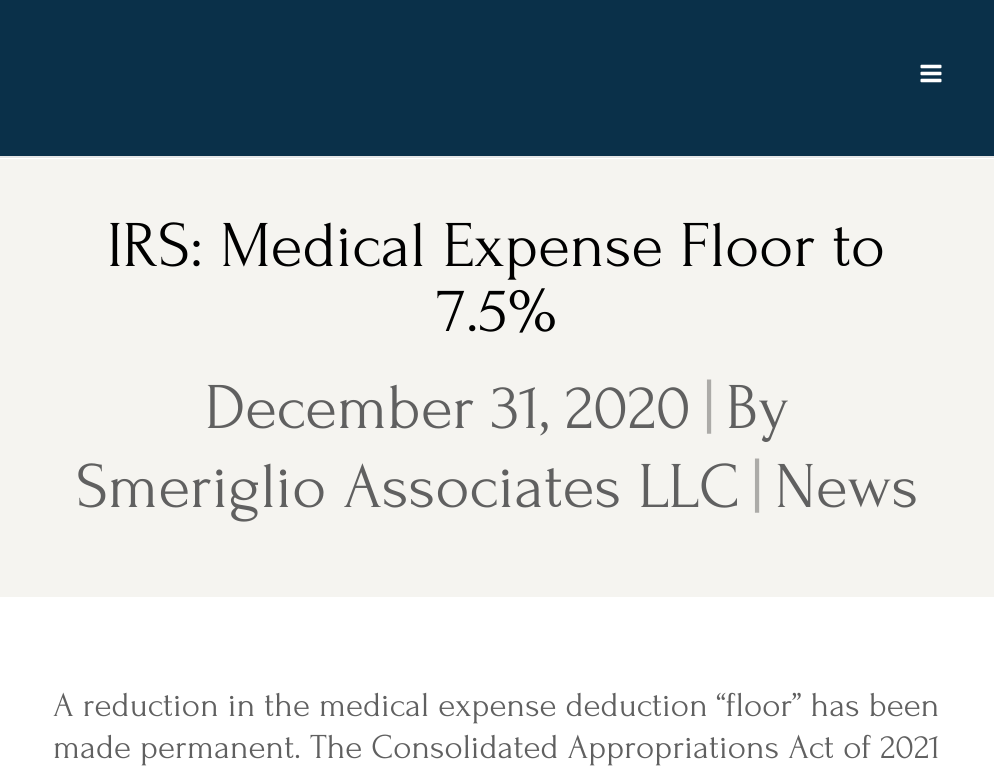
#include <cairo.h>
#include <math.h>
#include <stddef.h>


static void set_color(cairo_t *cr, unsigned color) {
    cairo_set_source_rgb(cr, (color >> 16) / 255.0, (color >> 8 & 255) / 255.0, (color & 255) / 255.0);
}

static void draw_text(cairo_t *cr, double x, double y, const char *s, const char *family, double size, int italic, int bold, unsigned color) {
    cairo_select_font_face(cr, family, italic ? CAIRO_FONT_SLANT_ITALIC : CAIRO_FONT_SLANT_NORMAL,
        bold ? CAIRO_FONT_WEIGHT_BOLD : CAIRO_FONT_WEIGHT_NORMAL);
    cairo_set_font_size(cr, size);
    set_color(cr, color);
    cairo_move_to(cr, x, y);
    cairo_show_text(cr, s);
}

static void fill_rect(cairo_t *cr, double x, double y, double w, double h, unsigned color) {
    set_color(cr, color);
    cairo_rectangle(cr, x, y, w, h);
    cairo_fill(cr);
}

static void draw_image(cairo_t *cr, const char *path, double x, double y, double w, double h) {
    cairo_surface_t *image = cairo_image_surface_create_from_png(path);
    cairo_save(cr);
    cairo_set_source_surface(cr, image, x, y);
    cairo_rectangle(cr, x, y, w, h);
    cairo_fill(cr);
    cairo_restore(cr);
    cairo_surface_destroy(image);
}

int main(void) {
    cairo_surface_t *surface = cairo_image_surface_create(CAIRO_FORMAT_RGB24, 994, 773);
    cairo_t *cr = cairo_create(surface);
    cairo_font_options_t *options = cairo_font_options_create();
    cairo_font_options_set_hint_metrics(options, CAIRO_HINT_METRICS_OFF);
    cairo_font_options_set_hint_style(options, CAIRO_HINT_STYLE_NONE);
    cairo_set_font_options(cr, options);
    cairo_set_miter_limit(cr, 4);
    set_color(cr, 0xFFFFFF);
    cairo_paint(cr);
    fill_rect(cr, 0, 156, 994, 2, 0xE6E6E6);
    fill_rect(cr, 0, 0, 994, 156, 0x0A3049);
    draw_image(cr, "assets/img1.png", 920, 64, 22, 19);
    fill_rect(cr, 0, 159, 994, 438, 0xF5F4F0);
    draw_text(cr, 107, 266, "IRS: Medical Expense Floor to", "Forum", 65.25, 0, 0, 0x000000);
    draw_text(cr, 437, 331, "7.5%", "Forum", 65.25, 0, 0, 0x000000);
    draw_text(cr, 704, 428, "|", "Forum", 65.25, 0, 0, 0xACABA8);
    draw_text(cr, 726, 428, "By", "Forum", 65.25, 0, 0, 0x606060);
    draw_text(cr, 76, 507, "Smeriglio Associates LLC", "Forum", 65.25, 0, 0, 0x606060);
    draw_text(cr, 205, 428, "December 31, 2020", "Forum", 65.25, 0, 0, 0x606060);
    draw_text(cr, 752, 507, "|", "Forum", 65.25, 0, 0, 0xACABA8);
    draw_text(cr, 775, 507, "News", "Forum", 65.25, 0, 0, 0x606060);
    draw_text(cr, 53, 716, "A reduction in the medical expense deduction “floor” has been", "Forum", 35, 0, 0, 0x606060);
    draw_text(cr, 53, 758, "made permanent. The Consolidated Appropriations Act of 2021", "Forum", 35, 0, 0, 0x606060);
    cairo_surface_write_to_png(surface, "output.png");
    cairo_font_options_destroy(options);
    cairo_destroy(cr);
    cairo_surface_destroy(surface);
    return 0;
}
